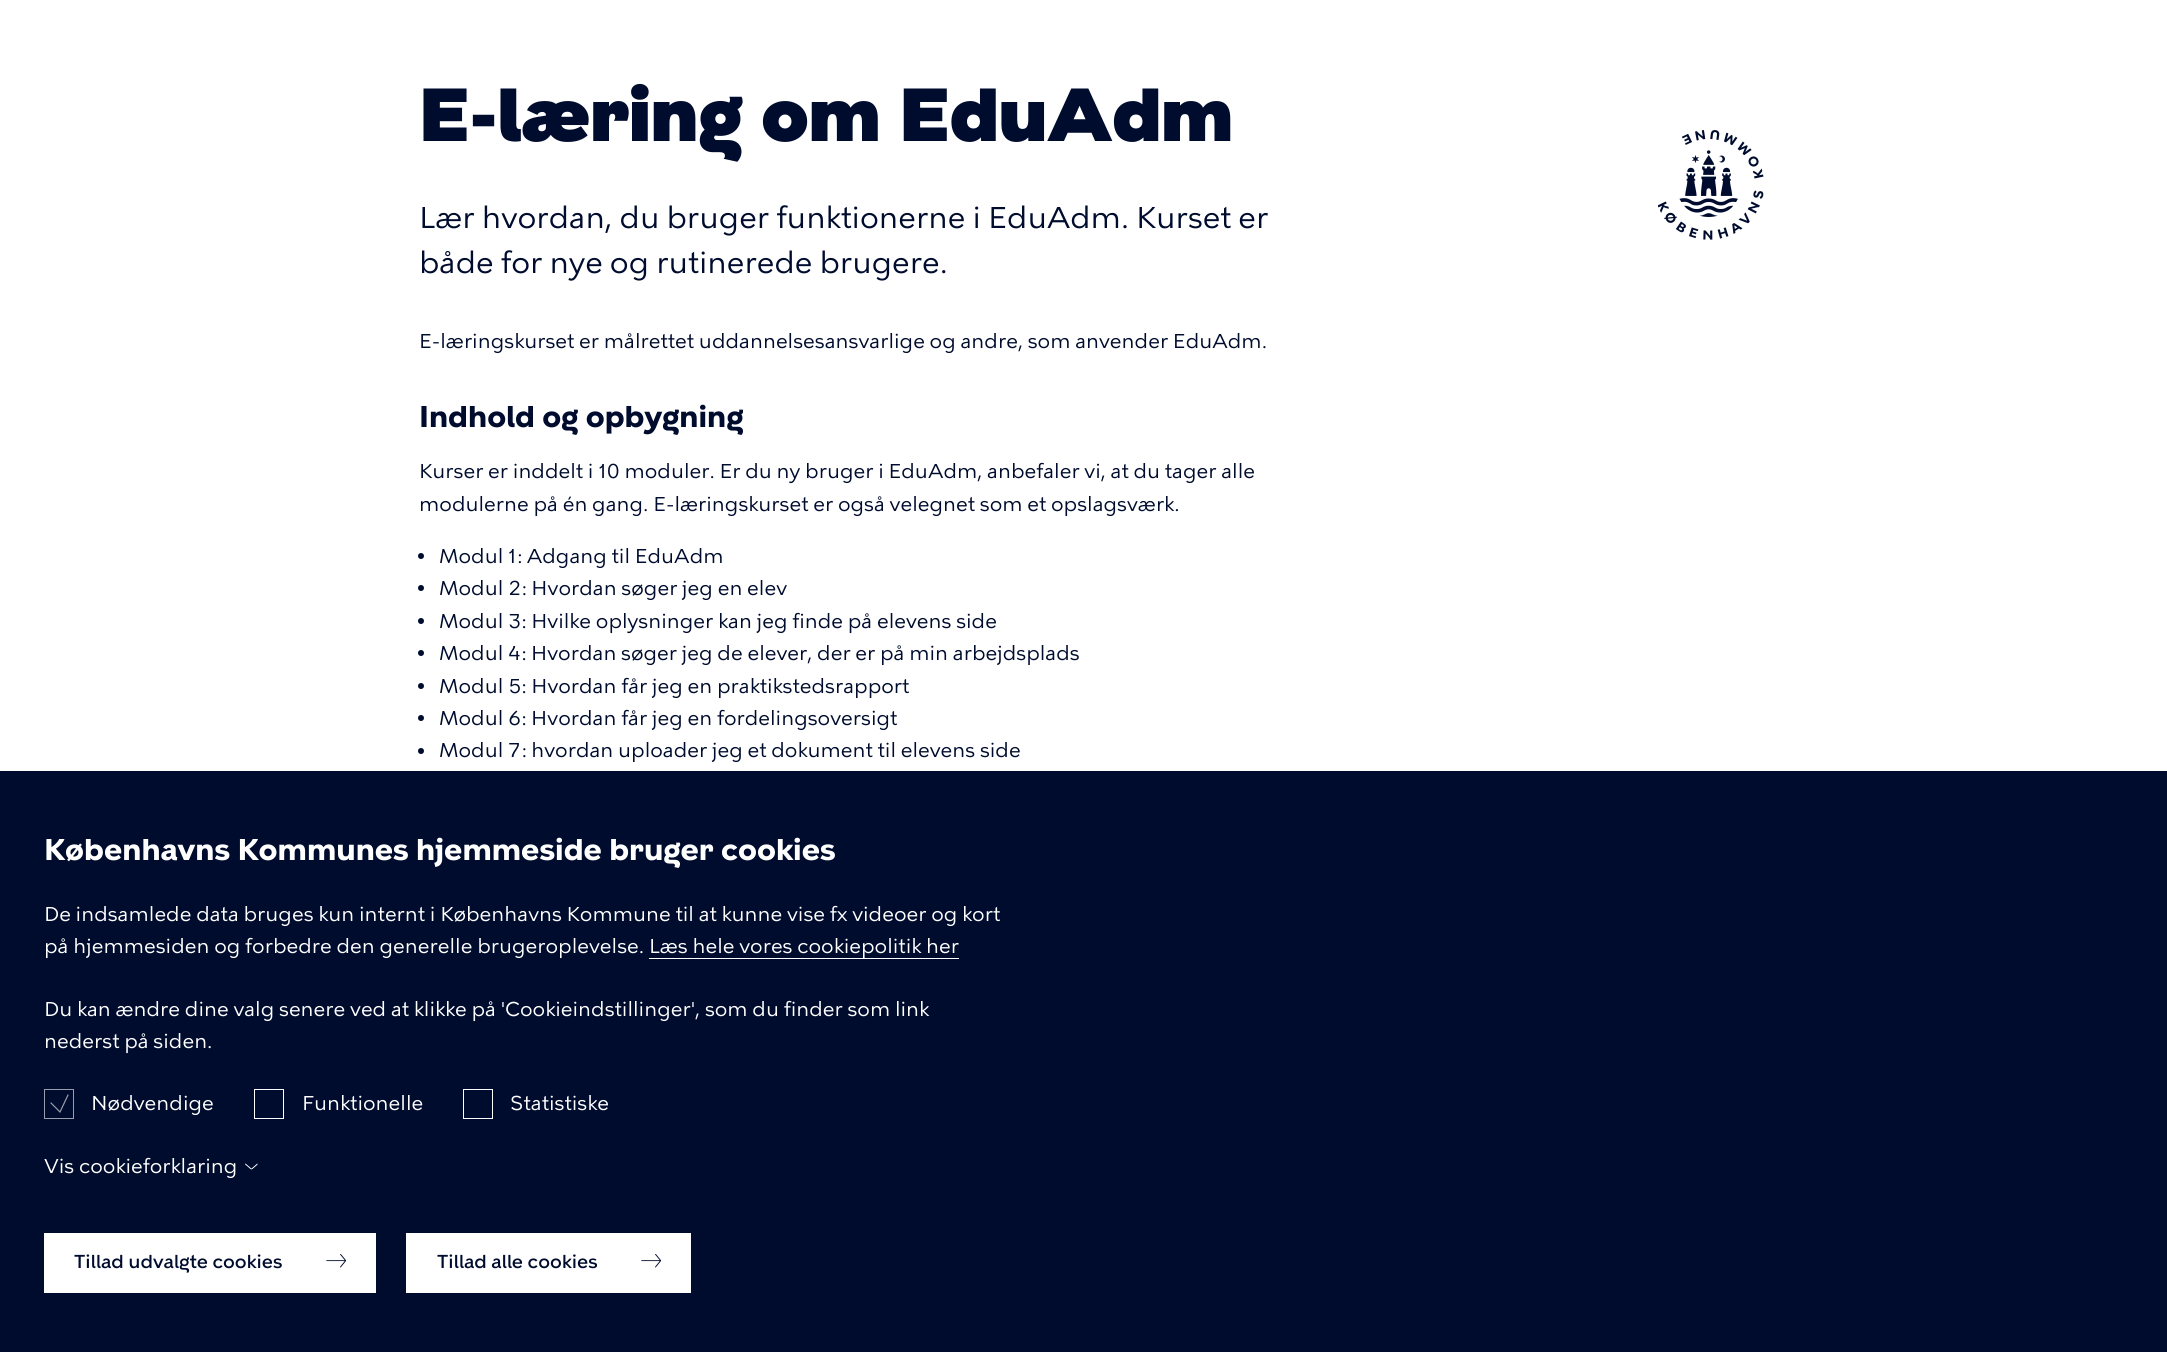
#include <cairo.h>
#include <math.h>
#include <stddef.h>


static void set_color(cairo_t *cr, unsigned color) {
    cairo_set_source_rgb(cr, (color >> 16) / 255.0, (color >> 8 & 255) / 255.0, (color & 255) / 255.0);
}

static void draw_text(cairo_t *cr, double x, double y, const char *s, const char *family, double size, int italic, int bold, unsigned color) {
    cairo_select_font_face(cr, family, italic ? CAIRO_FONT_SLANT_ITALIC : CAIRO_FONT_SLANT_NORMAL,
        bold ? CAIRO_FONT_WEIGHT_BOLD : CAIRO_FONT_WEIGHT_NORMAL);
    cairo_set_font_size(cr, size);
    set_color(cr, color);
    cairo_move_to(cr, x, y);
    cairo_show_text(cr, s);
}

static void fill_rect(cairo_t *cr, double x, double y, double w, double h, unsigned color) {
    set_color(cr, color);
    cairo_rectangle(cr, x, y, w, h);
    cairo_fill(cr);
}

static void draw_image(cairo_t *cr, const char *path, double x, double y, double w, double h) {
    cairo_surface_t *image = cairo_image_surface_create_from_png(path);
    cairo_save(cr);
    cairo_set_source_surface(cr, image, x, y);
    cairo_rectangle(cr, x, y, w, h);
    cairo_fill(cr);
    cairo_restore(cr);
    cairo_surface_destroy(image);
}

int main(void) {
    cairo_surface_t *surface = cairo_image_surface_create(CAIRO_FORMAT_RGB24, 2167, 1352);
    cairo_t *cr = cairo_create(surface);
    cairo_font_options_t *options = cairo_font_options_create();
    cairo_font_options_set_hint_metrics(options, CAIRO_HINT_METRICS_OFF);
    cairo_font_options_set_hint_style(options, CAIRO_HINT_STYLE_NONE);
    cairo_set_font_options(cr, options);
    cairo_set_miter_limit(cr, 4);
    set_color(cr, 0xFFFFFF);
    cairo_paint(cr);
    draw_text(cr, 419, 141, "E-læring om EduAdm", "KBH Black", 75, 0, 0, 0x000C2E);
    draw_image(cr, "assets/img1.png", 1658, 130, 106, 110);
    draw_text(cr, 419, 228, "Lær hvordan, du bruger funktionerne i EduAdm. Kurset er", "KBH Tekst", 30, 0, 0, 0x000C2E);
    draw_text(cr, 419, 273, "både for nye og rutinerede brugere.", "KBH Tekst", 30, 0, 0, 0x000C2E);
    draw_text(cr, 419, 348, "E-læringskurset er målrettet uddannelsesansvarlige og andre, som anvender EduAdm.", "KBH Tekst", 20, 0, 0, 0x000C2E);
    draw_text(cr, 419, 427, "Indhold og opbygning", "KBH", 30, 0, 1, 0x000C2E);
    draw_text(cr, 419, 478, "Kurser er inddelt i 10 moduler. Er du ny bruger i EduAdm, anbefaler vi, at du tager alle", "KBH Tekst", 20, 0, 0, 0x000C2E);
    draw_text(cr, 419, 511, "modulerne på én gang. E-læringskurset er også velegnet som et opslagsværk.", "KBH Tekst", 20, 0, 0, 0x000C2E);
    cairo_new_path(cr);
    cairo_arc(cr, 421, 556, 3, 0, 2 * M_PI);
    cairo_fill(cr);
    draw_text(cr, 439, 563, "Modul 1: Adgang til EduAdm", "KBH Tekst", 20, 0, 0, 0x000C2E);
    cairo_new_path(cr);
    cairo_arc(cr, 421, 588, 3, 0, 2 * M_PI);
    cairo_fill(cr);
    draw_text(cr, 439, 595, "Modul 2: Hvordan søger jeg en elev", "KBH Tekst", 20, 0, 0, 0x000C2E);
    cairo_new_path(cr);
    cairo_arc(cr, 421, 621, 3, 0, 2 * M_PI);
    cairo_fill(cr);
    draw_text(cr, 439, 628, "Modul 3: Hvilke oplysninger kan jeg finde på elevens side", "KBH Tekst", 20, 0, 0, 0x000C2E);
    cairo_new_path(cr);
    cairo_arc(cr, 421, 653, 3, 0, 2 * M_PI);
    cairo_fill(cr);
    draw_text(cr, 439, 660, "Modul 4: Hvordan søger jeg de elever, der er på min arbejdsplads", "KBH Tekst", 20, 0, 0, 0x000C2E);
    cairo_new_path(cr);
    cairo_arc(cr, 421, 686, 3, 0, 2 * M_PI);
    cairo_fill(cr);
    draw_text(cr, 439, 693, "Modul 5: Hvordan får jeg en praktikstedsrapport", "KBH Tekst", 20, 0, 0, 0x000C2E);
    cairo_new_path(cr);
    cairo_arc(cr, 421, 718, 3, 0, 2 * M_PI);
    cairo_fill(cr);
    draw_text(cr, 439, 725, "Modul 6: Hvordan får jeg en fordelingsoversigt", "KBH Tekst", 20, 0, 0, 0x000C2E);
    cairo_new_path(cr);
    cairo_arc(cr, 421, 751, 3, 0, 2 * M_PI);
    cairo_fill(cr);
    draw_text(cr, 439, 757, "Modul 7: hvordan uploader jeg et dokument til elevens side", "KBH Tekst", 20, 0, 0, 0x000C2E);
    fill_rect(cr, 0, 771, 2167, 581, 0x000C2E);
    draw_text(cr, 44, 860, "Københavns Kommunes hjemmeside bruger cookies", "KBH", 30, 0, 1, 0xFFFFFF);
    draw_text(cr, 44, 921, "De indsamlede data bruges kun internt i Københavns Kommune til at kunne vise fx videoer og kort", "KBH Tekst", 20, 0, 0, 0xFFFFFF);
    draw_text(cr, 44, 953, "på hjemmesiden og forbedre den generelle brugeroplevelse.", "KBH Tekst", 20, 0, 0, 0xFFFFFF);
    fill_rect(cr, 649, 958, 310, 1, 0xFFFFFF);
    draw_text(cr, 649, 953, "Læs hele vores cookiepolitik her", "KBH Tekst", 20, 0, 0, 0xFFFFFF);
    draw_text(cr, 44, 1016, "Du kan ændre dine valg senere ved at klikke på 'Cookieindstillinger', som du finder som link", "KBH Tekst", 20, 0, 0, 0xFFFFFF);
    draw_text(cr, 44, 1048, "nederst på siden.", "KBH Tekst", 20, 0, 0, 0xFFFFFF);
    cairo_rectangle(cr, 44.5, 1089.5, 29, 29);
    set_color(cr, 0x999EAB);
    cairo_set_line_width(cr, 1);
    cairo_stroke(cr);
    cairo_new_path(cr);
    cairo_move_to(cr, 51, 1103);
    cairo_line_to(cr, 60, 1112);
    cairo_line_to(cr, 68, 1095);
    cairo_set_line_width(cr, 1.2);
    cairo_set_line_cap(cr, CAIRO_LINE_CAP_ROUND);
    cairo_stroke(cr);
    draw_text(cr, 91, 1110, "Nødvendige", "KBH Tekst", 20, 0, 0, 0xFFFFFF);
    cairo_rectangle(cr, 254.5, 1089.5, 29, 29);
    cairo_set_line_width(cr, 1);
    cairo_set_line_cap(cr, CAIRO_LINE_CAP_BUTT);
    cairo_stroke(cr);
    draw_text(cr, 302, 1110, "Funktionelle", "KBH Tekst", 20, 0, 0, 0xFFFFFF);
    cairo_rectangle(cr, 463.5, 1089.5, 29, 29);
    cairo_stroke(cr);
    draw_text(cr, 510, 1110, "Statistiske", "KBH Tekst", 20, 0, 0, 0xFFFFFF);
    draw_text(cr, 44, 1173, "Vis cookieforklaring", "KBH Tekst", 20, 0, 0, 0xFFFFFF);
    draw_image(cr, "assets/img2.png", 245, 1163, 13, 7);
    fill_rect(cr, 44, 1233, 332, 60, 0xFFFFFF);
    draw_text(cr, 74, 1268, "Tillad udvalgte cookies", "KBH Medium", 18.75, 0, 0, 0x000C2E);
    draw_image(cr, "assets/img3.png", 326, 1254, 20, 14);
    fill_rect(cr, 406, 1233, 285, 60, 0xFFFFFF);
    draw_text(cr, 437, 1268, "Tillad alle cookies", "KBH Medium", 18.75, 0, 0, 0x000C2E);
    draw_image(cr, "assets/img3.png", 641, 1254, 20, 14);
    cairo_surface_write_to_png(surface, "output.png");
    cairo_font_options_destroy(options);
    cairo_destroy(cr);
    cairo_surface_destroy(surface);
    return 0;
}
